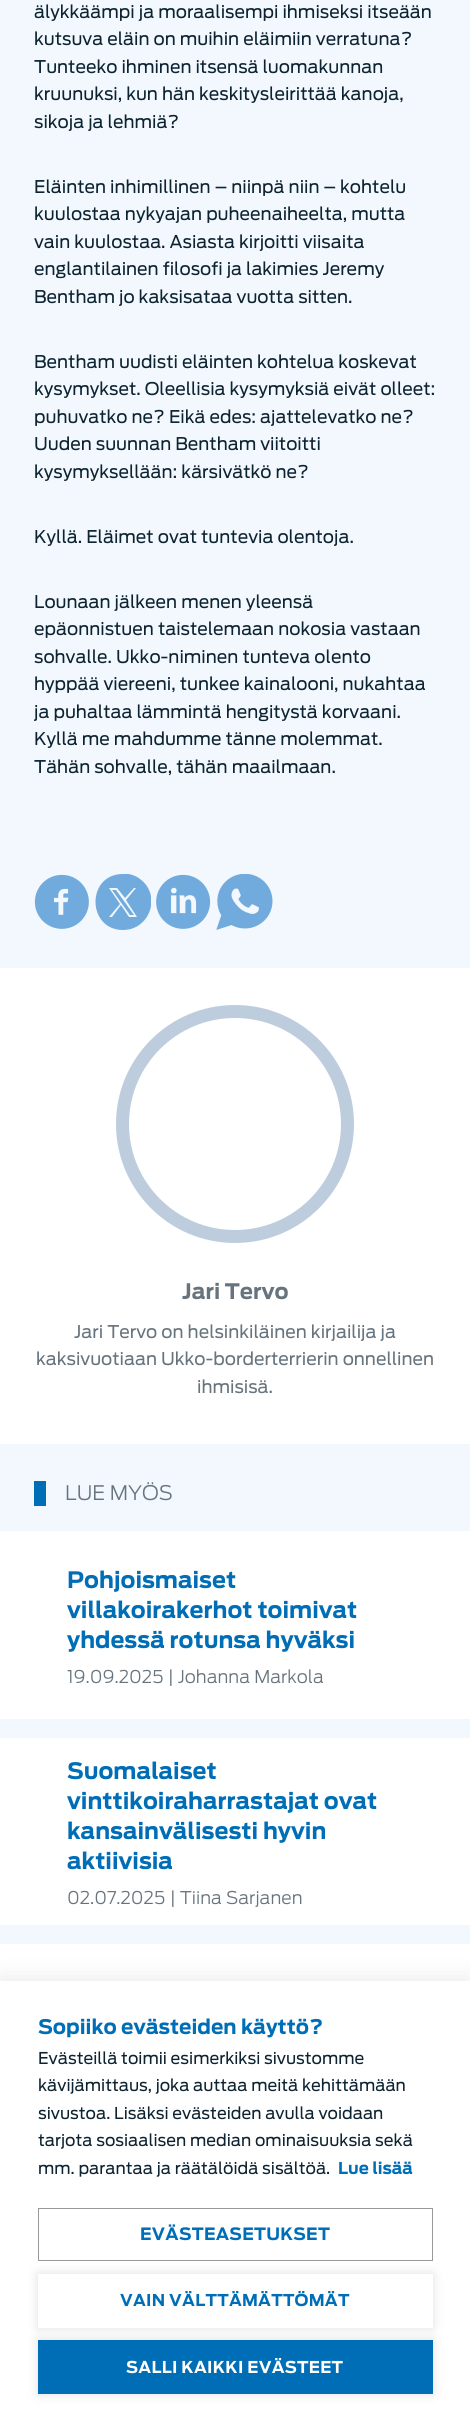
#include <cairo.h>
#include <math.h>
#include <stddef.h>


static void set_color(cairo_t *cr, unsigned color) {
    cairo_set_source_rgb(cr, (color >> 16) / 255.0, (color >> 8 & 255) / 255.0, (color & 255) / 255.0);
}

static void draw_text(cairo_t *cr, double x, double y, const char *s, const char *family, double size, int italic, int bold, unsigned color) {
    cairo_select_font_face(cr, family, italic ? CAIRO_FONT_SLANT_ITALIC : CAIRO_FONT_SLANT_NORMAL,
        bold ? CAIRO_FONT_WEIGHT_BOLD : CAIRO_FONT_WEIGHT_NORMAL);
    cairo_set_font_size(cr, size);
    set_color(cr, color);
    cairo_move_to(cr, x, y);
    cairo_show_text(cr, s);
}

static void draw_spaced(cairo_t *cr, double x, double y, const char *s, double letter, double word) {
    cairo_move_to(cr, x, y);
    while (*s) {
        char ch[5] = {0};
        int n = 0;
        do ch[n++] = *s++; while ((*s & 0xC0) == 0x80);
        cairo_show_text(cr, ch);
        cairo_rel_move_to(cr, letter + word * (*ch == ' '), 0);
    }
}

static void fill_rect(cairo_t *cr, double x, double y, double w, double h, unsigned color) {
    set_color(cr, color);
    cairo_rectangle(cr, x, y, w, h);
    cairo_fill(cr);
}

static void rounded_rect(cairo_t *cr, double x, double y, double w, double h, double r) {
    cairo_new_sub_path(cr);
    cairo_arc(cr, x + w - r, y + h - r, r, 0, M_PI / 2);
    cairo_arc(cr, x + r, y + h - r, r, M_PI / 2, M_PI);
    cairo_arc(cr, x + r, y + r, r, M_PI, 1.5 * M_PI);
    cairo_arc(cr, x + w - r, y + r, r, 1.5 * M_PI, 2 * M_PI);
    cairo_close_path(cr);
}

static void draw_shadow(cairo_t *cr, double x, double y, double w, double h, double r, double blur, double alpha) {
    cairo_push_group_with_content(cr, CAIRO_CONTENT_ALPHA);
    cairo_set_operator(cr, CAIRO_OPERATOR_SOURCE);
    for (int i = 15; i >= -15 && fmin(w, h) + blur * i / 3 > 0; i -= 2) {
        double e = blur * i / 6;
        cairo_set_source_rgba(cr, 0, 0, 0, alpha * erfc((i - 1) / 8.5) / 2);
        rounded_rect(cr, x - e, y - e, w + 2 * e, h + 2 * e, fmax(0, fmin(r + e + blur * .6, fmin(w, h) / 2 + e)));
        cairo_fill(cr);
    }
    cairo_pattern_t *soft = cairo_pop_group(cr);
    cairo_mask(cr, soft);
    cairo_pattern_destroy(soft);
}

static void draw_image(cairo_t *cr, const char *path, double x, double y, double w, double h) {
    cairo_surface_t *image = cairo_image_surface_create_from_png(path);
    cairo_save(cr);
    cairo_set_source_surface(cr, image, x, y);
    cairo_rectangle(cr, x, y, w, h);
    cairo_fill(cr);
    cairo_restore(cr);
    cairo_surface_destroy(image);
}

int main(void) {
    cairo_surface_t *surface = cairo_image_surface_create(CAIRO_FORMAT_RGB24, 470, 2424);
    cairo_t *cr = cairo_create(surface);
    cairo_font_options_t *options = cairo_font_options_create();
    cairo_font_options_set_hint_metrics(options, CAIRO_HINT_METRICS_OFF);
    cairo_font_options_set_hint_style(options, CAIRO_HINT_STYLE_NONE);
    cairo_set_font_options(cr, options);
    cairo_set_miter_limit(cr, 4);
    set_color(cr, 0xF2F8FD);
    cairo_paint(cr);
    draw_text(cr, 34, 18, "älykkäämpi ja moraalisempi ihmiseksi itseään", "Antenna", 17.5, 0, 0, 0x0D2331);
    draw_text(cr, 34, 45, "kutsuva eläin on muihin eläimiin verratuna?", "Antenna", 17.5, 0, 0, 0x0D2331);
    draw_text(cr, 34, 73, "Tunteeko ihminen itsensä luomakunnan", "Antenna", 17.5, 0, 0, 0x0D2331);
    draw_text(cr, 34, 100, "kruunuksi, kun hän keskitysleirittää kanoja,", "Antenna", 17.5, 0, 0, 0x0D2331);
    draw_text(cr, 34, 128, "sikoja ja lehmiä?", "Antenna", 17.5, 0, 0, 0x0D2331);
    draw_text(cr, 34, 193, "Eläinten inhimillinen – niinpä niin – kohtelu", "Antenna", 17.5, 0, 0, 0x0D2331);
    draw_text(cr, 34, 220, "kuulostaa nykyajan puheenaiheelta, mutta", "Antenna", 17.5, 0, 0, 0x0D2331);
    draw_text(cr, 34, 248, "vain kuulostaa. Asiasta kirjoitti viisaita", "Antenna", 17.5, 0, 0, 0x0D2331);
    draw_text(cr, 34, 275, "englantilainen filosofi ja lakimies Jeremy", "Antenna", 17.5, 0, 0, 0x0D2331);
    draw_text(cr, 34, 303, "Bentham jo kaksisataa vuotta sitten.", "Antenna", 17.5, 0, 0, 0x0D2331);
    draw_text(cr, 34, 368, "Bentham uudisti eläinten kohtelua koskevat", "Antenna", 17.5, 0, 0, 0x0D2331);
    draw_text(cr, 34, 395, "kysymykset. Oleellisia kysymyksiä eivät olleet:", "Antenna", 17.5, 0, 0, 0x0D2331);
    draw_text(cr, 34, 423, "puhuvatko ne? Eikä edes: ajattelevatko ne?", "Antenna", 17.5, 0, 0, 0x0D2331);
    draw_text(cr, 34, 450, "Uuden suunnan Bentham viitoitti", "Antenna", 17.5, 0, 0, 0x0D2331);
    draw_text(cr, 34, 478, "kysymyksellään: kärsivätkö ne?", "Antenna", 17.5, 0, 0, 0x0D2331);
    draw_text(cr, 34, 543, "Kyllä. Eläimet ovat tuntevia olentoja.", "Antenna", 17.5, 0, 0, 0x0D2331);
    draw_text(cr, 34, 608, "Lounaan jälkeen menen yleensä", "Antenna", 17.5, 0, 0, 0x0D2331);
    draw_text(cr, 34, 635, "epäonnistuen taistelemaan nokosia vastaan", "Antenna", 17.5, 0, 0, 0x0D2331);
    draw_text(cr, 34, 663, "sohvalle. Ukko-niminen tunteva olento", "Antenna", 17.5, 0, 0, 0x0D2331);
    draw_text(cr, 34, 690, "hyppää viereeni, tunkee kainalooni, nukahtaa", "Antenna", 17.5, 0, 0, 0x0D2331);
    draw_text(cr, 34, 718, "ja puhaltaa lämmintä hengitystä korvaani.", "Antenna", 17.5, 0, 0, 0x0D2331);
    draw_text(cr, 34, 745, "Kyllä me mahdumme tänne molemmat.", "Antenna", 17.5, 0, 0, 0x0D2331);
    draw_text(cr, 34, 773, "Tähän sohvalle, tähän maailmaan.", "Antenna", 17.5, 0, 0, 0x0D2331);
    draw_image(cr, "assets/img1.png", 34, 874, 55, 55);
    cairo_save(cr);
    cairo_rectangle(cr, 95, 874, 56, 56);
    cairo_clip(cr);
    set_color(cr, 0x71ABDD);
    cairo_new_path(cr);
    cairo_move_to(cr, 123, 930);
    cairo_curve_to(cr, 87, 930, 86, 875, 122, 874);
    cairo_curve_to(cr, 128, 873, 135, 875, 140, 879);
    cairo_curve_to(cr, 162, 895, 150, 930, 123, 930);
    cairo_close_path(cr);
    cairo_move_to(cr, 121, 905);
    cairo_line_to(cr, 129, 917);
    cairo_line_to(cr, 137, 917);
    cairo_line_to(cr, 126, 900);
    cairo_line_to(cr, 136, 888);
    cairo_line_to(cr, 134, 888);
    cairo_line_to(cr, 125, 898);
    cairo_line_to(cr, 117, 888);
    cairo_line_to(cr, 109, 888);
    cairo_line_to(cr, 120, 904);
    cairo_line_to(cr, 109, 917);
    cairo_line_to(cr, 112, 917);
    cairo_close_path(cr);
    cairo_move_to(cr, 134, 915);
    cairo_line_to(cr, 130, 915);
    cairo_line_to(cr, 112, 890);
    cairo_line_to(cr, 116, 890);
    cairo_close_path(cr);
    cairo_fill(cr);
    cairo_restore(cr);
    draw_image(cr, "assets/img2.png", 156, 874, 55, 55);
    draw_image(cr, "assets/img3.png", 216, 874, 57, 56);
    fill_rect(cr, 0, 968, 470, 476, 0xFFFFFF);
    cairo_arc(cr, 235, 1124, 112.5, 0, 2 * M_PI);
    set_color(cr, 0xBDCDDD);
    cairo_set_line_width(cr, 13);
    cairo_stroke(cr);
    draw_text(cr, 182, 1299, "Jari Tervo", "Antenna", 21.25, 0, 1, 0x67747E);
    draw_text(cr, 74, 1338, "Jari Tervo on helsinkiläinen kirjailija ja", "Antenna", 17.5, 0, 0, 0x67747E);
    draw_text(cr, 36, 1365, "kaksivuotiaan Ukko-borderterrierin onnellinen", "Antenna", 17.5, 0, 0, 0x67747E);
    draw_text(cr, 197, 1393, "ihmisisä.", "Antenna", 17.5, 0, 0, 0x67747E);
    fill_rect(cr, 34, 1481, 12, 25, 0x006EB7);
    draw_text(cr, 65, 1500, "LUE MYÖS", "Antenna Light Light", 20, 0, 0, 0x67747E);
    fill_rect(cr, 0, 1531, 470, 188, 0xFFFFFF);
    draw_text(cr, 67, 1588, "Pohjoismaiset", "Antenna", 22.5, 0, 1, 0x006EB7);
    draw_text(cr, 67, 1618, "villakoirakerhot toimivat", "Antenna", 22.5, 0, 1, 0x006EB7);
    draw_text(cr, 67, 1648, "yhdessä rotunsa hyväksi", "Antenna", 22.5, 0, 1, 0x006EB7);
    draw_text(cr, 67, 1683, "19.09.2025", "Antenna Light Light", 17.5, 0, 0, 0x67747E);
    draw_text(cr, 168, 1683, "| Johanna Markola", "Antenna Light Light", 17.5, 0, 0, 0x67747E);
    fill_rect(cr, 0, 1738, 470, 187, 0xFFFFFF);
    draw_text(cr, 67, 1779, "Suomalaiset", "Antenna", 22.5, 0, 1, 0x006EB7);
    draw_text(cr, 67, 1809, "vinttikoiraharrastajat ovat", "Antenna", 22.5, 0, 1, 0x006EB7);
    draw_text(cr, 67, 1839, "kansainvälisesti hyvin", "Antenna", 22.5, 0, 1, 0x006EB7);
    draw_text(cr, 67, 1869, "aktiivisia", "Antenna", 22.5, 0, 1, 0x006EB7);
    draw_text(cr, 67, 1904, "02.07.2025", "Antenna Light Light", 17.5, 0, 0, 0x67747E);
    draw_text(cr, 170, 1904, "| Tiina Sarjanen", "Antenna Light Light", 17.5, 0, 0, 0x67747E);
    fill_rect(cr, 0, 1944, 470, 37, 0xFFFFFF);
    set_color(cr, 0x000000);
    draw_shadow(cr, 0, 1981, 470, 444, 0, 12.5, 0.1);
    fill_rect(cr, 0, 1981, 470, 443, 0xFFFFFF);
    draw_text(cr, 38, 2034, "Sopiiko evästeiden käyttö?", "Antenna", 20, 0, 1, 0x006EB7);
    draw_text(cr, 38, 2064, "Evästeillä toimii esimerkiksi sivustomme", "Antenna", 16.25, 0, 0, 0x0D2331);
    draw_text(cr, 38, 2091, "kävijämittaus, joka auttaa meitä kehittämään", "Antenna", 16.25, 0, 0, 0x0D2331);
    draw_text(cr, 38, 2119, "sivustoa. Lisäksi evästeiden avulla voidaan", "Antenna", 16.25, 0, 0, 0x0D2331);
    draw_text(cr, 38, 2146, "tarjota sosiaalisen median ominaisuuksia sekä", "Antenna", 16.25, 0, 0, 0x0D2331);
    draw_text(cr, 38, 2174, "mm. parantaa ja räätälöidä sisältöä.", "Antenna", 16.25, 0, 0, 0x0D2331);
    draw_text(cr, 338, 2174, "Lue lisää", "Antenna", 16.25, 0, 1, 0x006EB7);
    cairo_rectangle(cr, 38.5, 2208.5, 394, 52);
    set_color(cr, 0x999999);
    cairo_set_line_width(cr, 1);
    cairo_stroke(cr);
    cairo_set_font_size(cr, 16.9);
    set_color(cr, 0x006EB7);
    draw_spaced(cr, 140, 2240, "EVÄSTEASETUKSET", 0.25, 0);
    set_color(cr, 0x000000);
    draw_shadow(cr, 38, 2274, 395, 54, 0, 6, 0.12);
    fill_rect(cr, 38, 2274, 395, 54, 0xFFFFFF);
    cairo_set_font_size(cr, 16.25);
    set_color(cr, 0x006EB7);
    draw_spaced(cr, 120, 2306, "VAIN VÄLTTÄMÄTTÖMÄT", 0.25, 0);
    set_color(cr, 0x000000);
    draw_shadow(cr, 38, 2340, 395, 54, 0, 6, 0.12);
    fill_rect(cr, 38, 2340, 395, 54, 0x006EB7);
    set_color(cr, 0xFFFFFF);
    draw_spaced(cr, 126, 2373, "SALLI KAIKKI EVÄSTEET", 0.25, 0);
    cairo_surface_write_to_png(surface, "output.png");
    cairo_font_options_destroy(options);
    cairo_destroy(cr);
    cairo_surface_destroy(surface);
    return 0;
}
